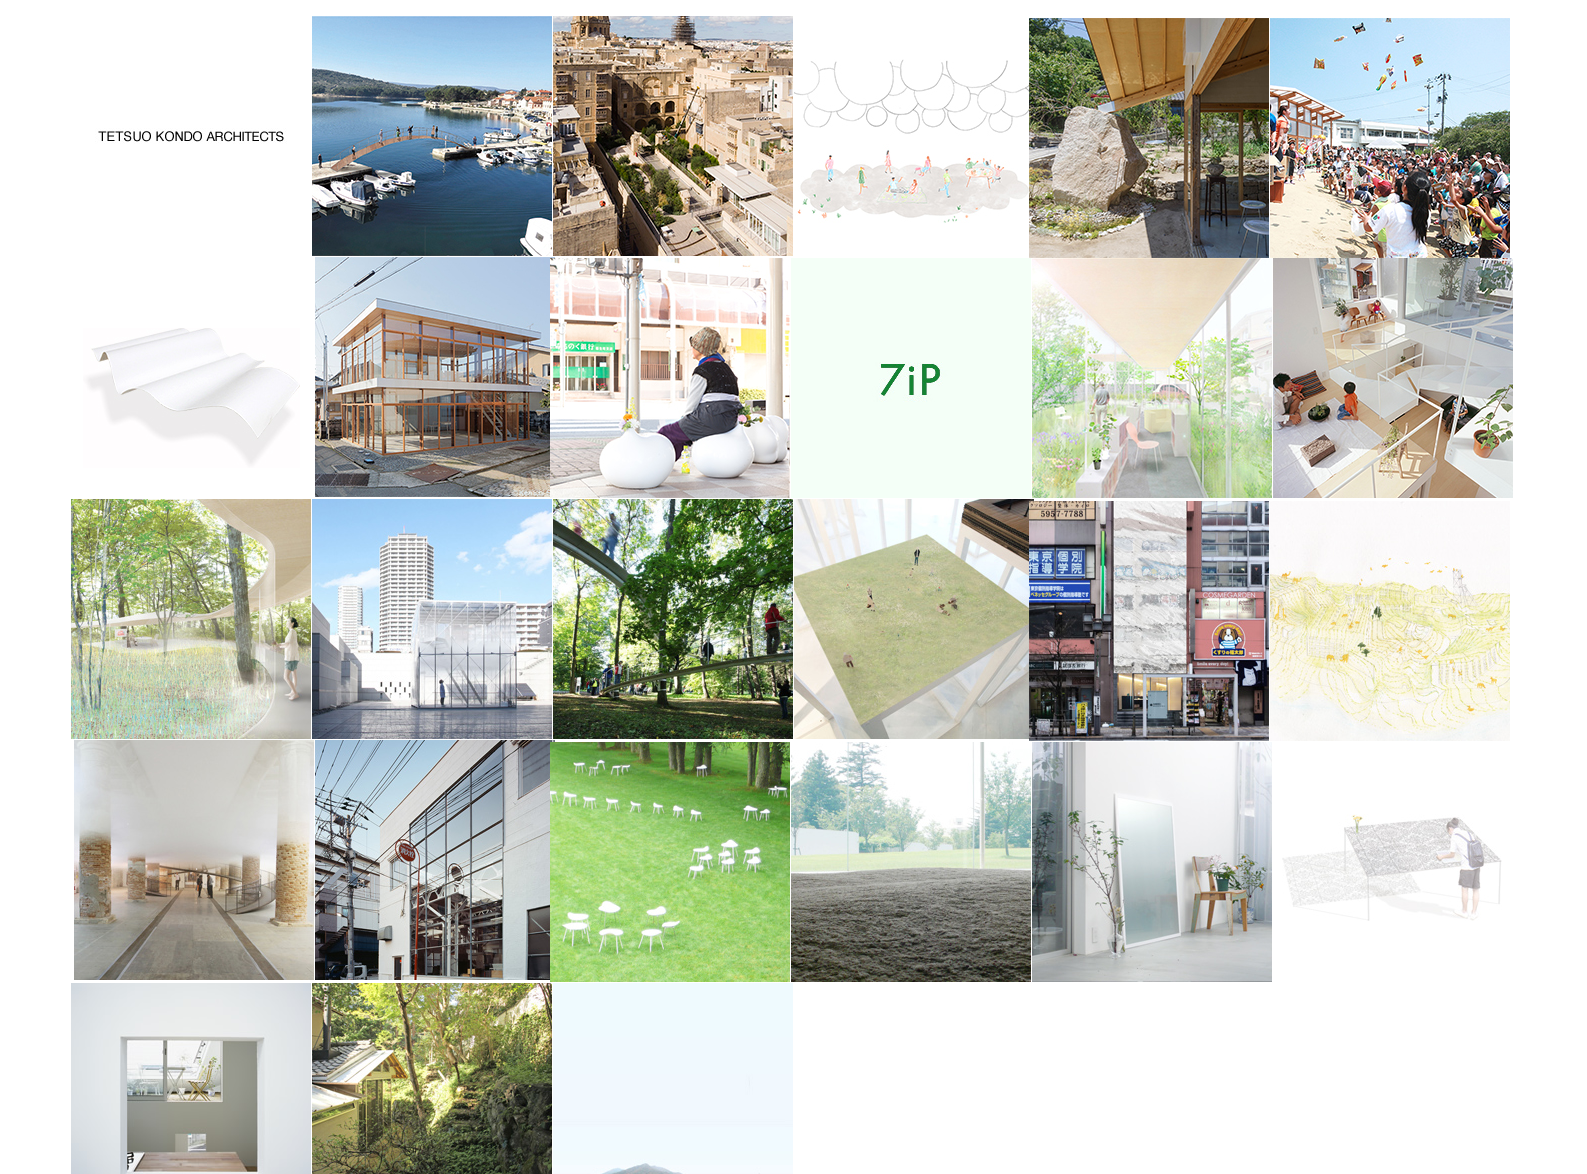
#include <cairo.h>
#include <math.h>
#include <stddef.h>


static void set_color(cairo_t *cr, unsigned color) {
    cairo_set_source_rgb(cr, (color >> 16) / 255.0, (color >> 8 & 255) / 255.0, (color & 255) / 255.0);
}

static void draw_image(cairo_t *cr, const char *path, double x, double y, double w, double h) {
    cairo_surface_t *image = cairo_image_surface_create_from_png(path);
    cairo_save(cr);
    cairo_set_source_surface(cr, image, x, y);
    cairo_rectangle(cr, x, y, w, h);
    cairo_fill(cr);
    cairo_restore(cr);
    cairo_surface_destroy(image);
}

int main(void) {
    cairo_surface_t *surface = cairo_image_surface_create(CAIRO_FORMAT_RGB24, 1587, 1174);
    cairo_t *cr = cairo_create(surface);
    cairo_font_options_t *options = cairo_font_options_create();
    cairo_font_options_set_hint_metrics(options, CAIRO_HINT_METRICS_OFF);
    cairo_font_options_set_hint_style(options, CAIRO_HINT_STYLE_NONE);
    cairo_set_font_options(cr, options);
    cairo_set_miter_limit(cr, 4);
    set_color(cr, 0xFFFFFF);
    cairo_paint(cr);
    draw_image(cr, "assets/img1.png", 95, 128, 192, 16);
    draw_image(cr, "assets/img2.png", 312, 16, 240, 240);
    draw_image(cr, "assets/img3.png", 553, 16, 240, 240);
    draw_image(cr, "assets/img4.png", 794, 59, 235, 164);
    draw_image(cr, "assets/img5.png", 1029, 18, 240, 240);
    draw_image(cr, "assets/img6.png", 1270, 18, 240, 240);
    draw_image(cr, "assets/img7.png", 83, 328, 217, 140);
    draw_image(cr, "assets/img8.png", 315, 257, 240, 240);
    draw_image(cr, "assets/img9.png", 550, 258, 240, 240);
    draw_image(cr, "assets/img10.png", 791, 258, 240, 240);
    draw_image(cr, "assets/img11.png", 1032, 258, 240, 240);
    draw_image(cr, "assets/img12.png", 1273, 258, 240, 240);
    draw_image(cr, "assets/img13.png", 71, 499, 240, 240);
    draw_image(cr, "assets/img14.png", 312, 499, 240, 240);
    draw_image(cr, "assets/img15.png", 553, 499, 240, 240);
    draw_image(cr, "assets/img16.png", 794, 499, 240, 240);
    draw_image(cr, "assets/img17.png", 1029, 501, 240, 240);
    draw_image(cr, "assets/img18.png", 1270, 501, 240, 240);
    draw_image(cr, "assets/img19.png", 74, 740, 240, 240);
    draw_image(cr, "assets/img20.png", 315, 740, 240, 240);
    draw_image(cr, "assets/img21.png", 550, 742, 240, 240);
    draw_image(cr, "assets/img22.png", 791, 742, 240, 240);
    draw_image(cr, "assets/img23.png", 1032, 742, 240, 240);
    draw_image(cr, "assets/img24.png", 1282, 814, 220, 107);
    draw_image(cr, "assets/img25.png", 71, 983, 240, 191);
    draw_image(cr, "assets/img26.png", 312, 983, 240, 191);
    draw_image(cr, "assets/img27.png", 553, 983, 240, 191);
    cairo_surface_write_to_png(surface, "output.png");
    cairo_font_options_destroy(options);
    cairo_destroy(cr);
    cairo_surface_destroy(surface);
    return 0;
}
